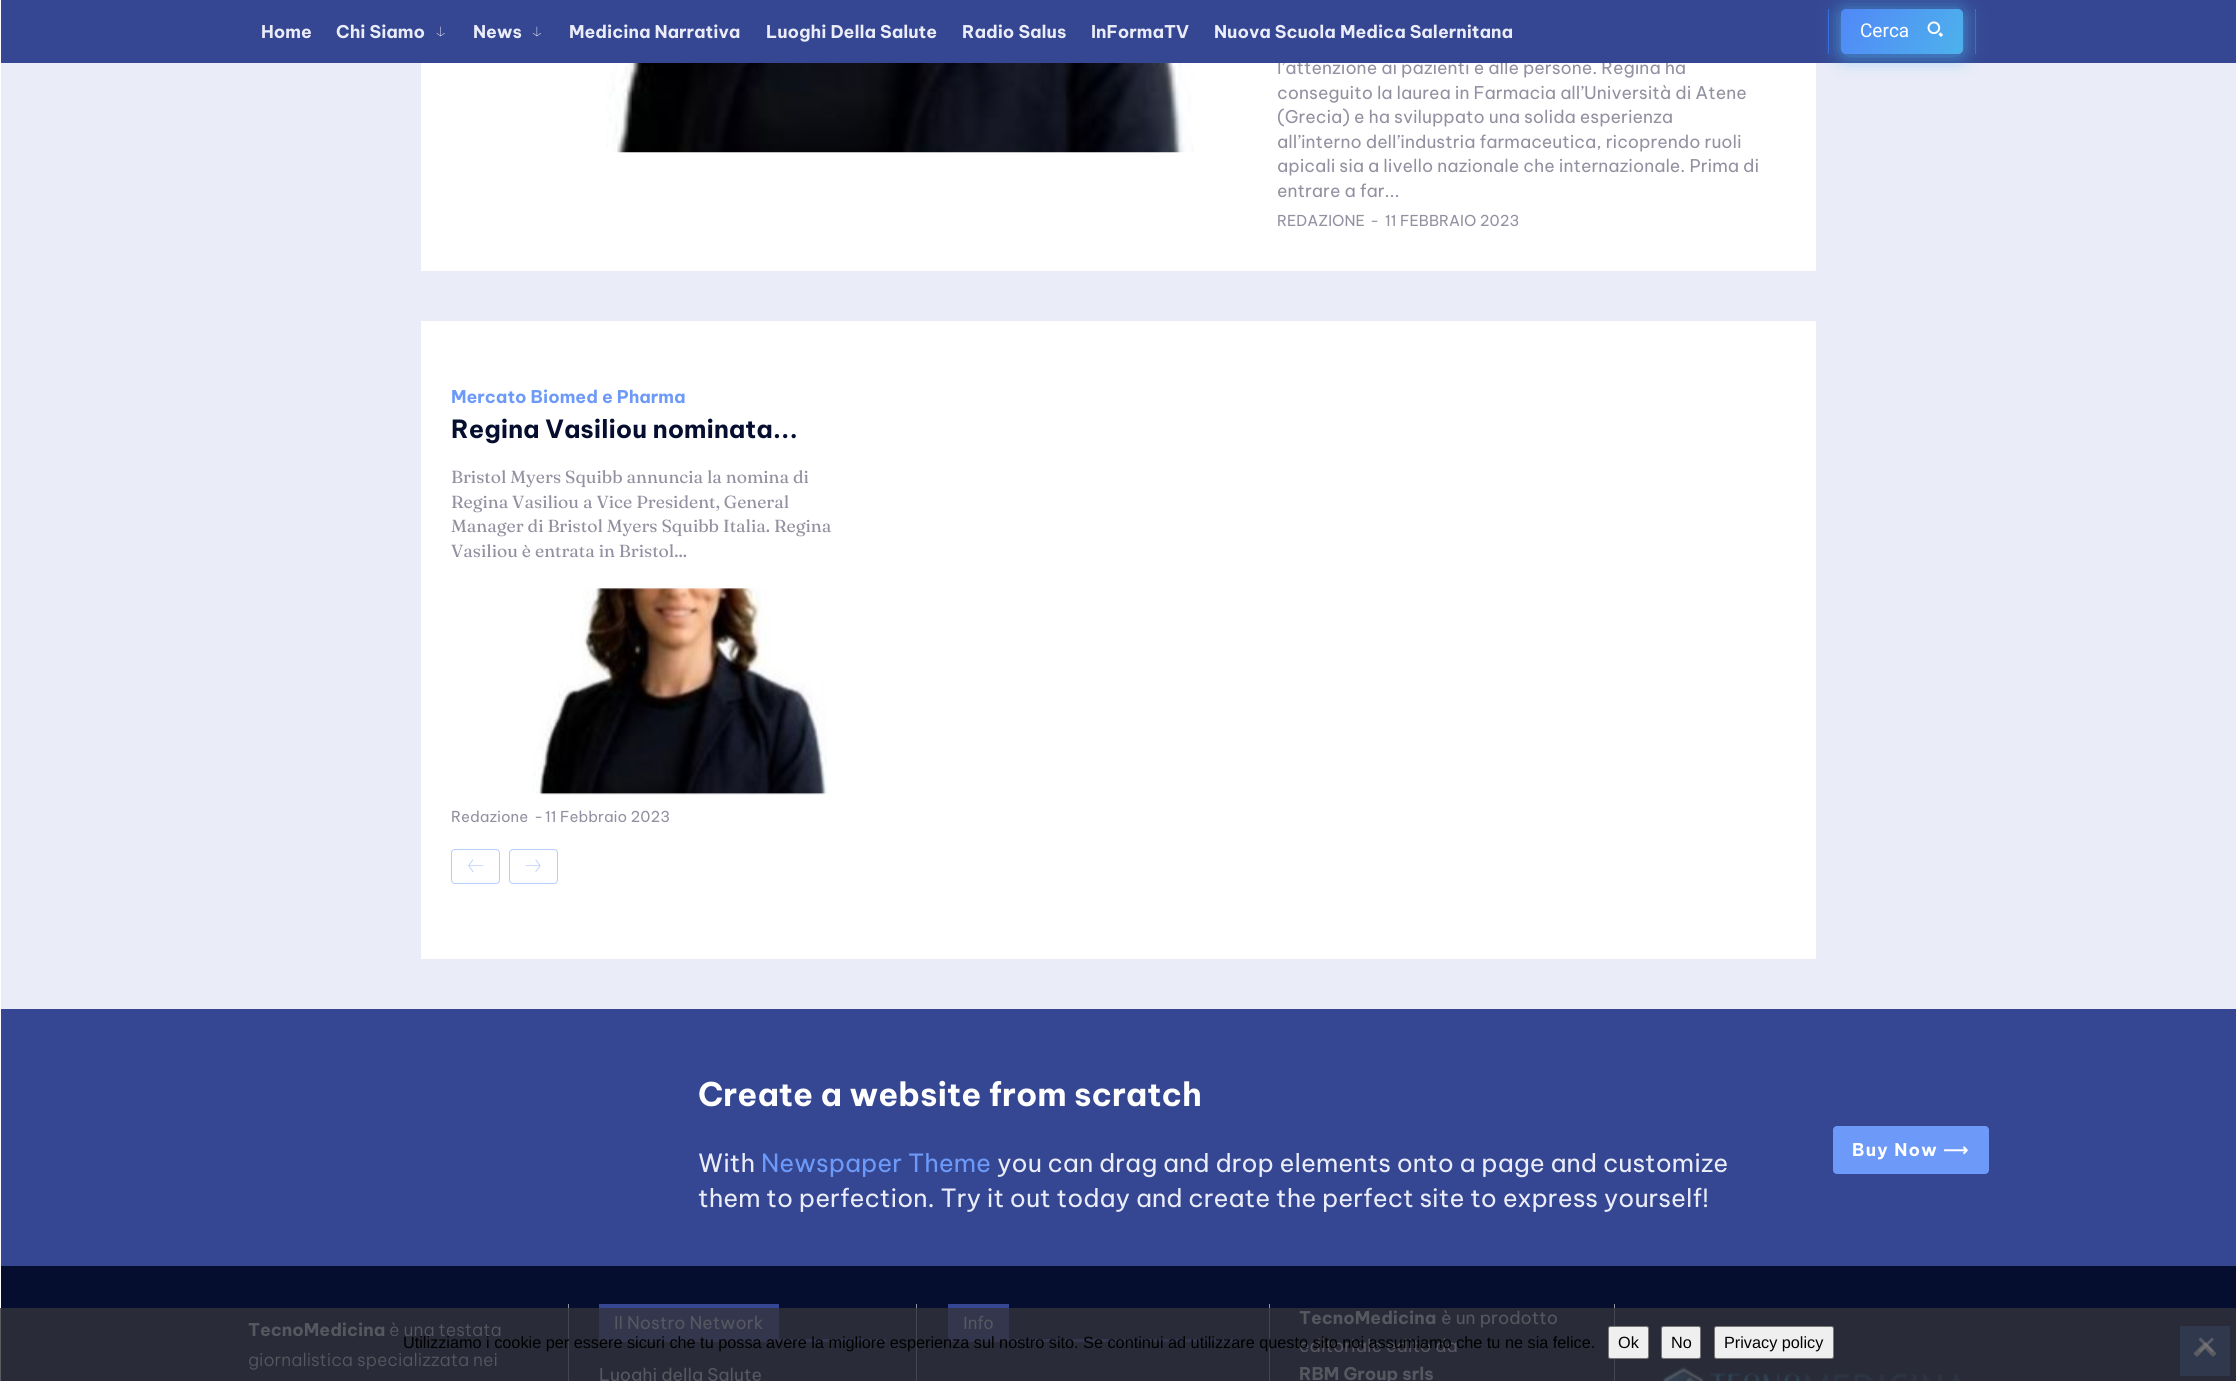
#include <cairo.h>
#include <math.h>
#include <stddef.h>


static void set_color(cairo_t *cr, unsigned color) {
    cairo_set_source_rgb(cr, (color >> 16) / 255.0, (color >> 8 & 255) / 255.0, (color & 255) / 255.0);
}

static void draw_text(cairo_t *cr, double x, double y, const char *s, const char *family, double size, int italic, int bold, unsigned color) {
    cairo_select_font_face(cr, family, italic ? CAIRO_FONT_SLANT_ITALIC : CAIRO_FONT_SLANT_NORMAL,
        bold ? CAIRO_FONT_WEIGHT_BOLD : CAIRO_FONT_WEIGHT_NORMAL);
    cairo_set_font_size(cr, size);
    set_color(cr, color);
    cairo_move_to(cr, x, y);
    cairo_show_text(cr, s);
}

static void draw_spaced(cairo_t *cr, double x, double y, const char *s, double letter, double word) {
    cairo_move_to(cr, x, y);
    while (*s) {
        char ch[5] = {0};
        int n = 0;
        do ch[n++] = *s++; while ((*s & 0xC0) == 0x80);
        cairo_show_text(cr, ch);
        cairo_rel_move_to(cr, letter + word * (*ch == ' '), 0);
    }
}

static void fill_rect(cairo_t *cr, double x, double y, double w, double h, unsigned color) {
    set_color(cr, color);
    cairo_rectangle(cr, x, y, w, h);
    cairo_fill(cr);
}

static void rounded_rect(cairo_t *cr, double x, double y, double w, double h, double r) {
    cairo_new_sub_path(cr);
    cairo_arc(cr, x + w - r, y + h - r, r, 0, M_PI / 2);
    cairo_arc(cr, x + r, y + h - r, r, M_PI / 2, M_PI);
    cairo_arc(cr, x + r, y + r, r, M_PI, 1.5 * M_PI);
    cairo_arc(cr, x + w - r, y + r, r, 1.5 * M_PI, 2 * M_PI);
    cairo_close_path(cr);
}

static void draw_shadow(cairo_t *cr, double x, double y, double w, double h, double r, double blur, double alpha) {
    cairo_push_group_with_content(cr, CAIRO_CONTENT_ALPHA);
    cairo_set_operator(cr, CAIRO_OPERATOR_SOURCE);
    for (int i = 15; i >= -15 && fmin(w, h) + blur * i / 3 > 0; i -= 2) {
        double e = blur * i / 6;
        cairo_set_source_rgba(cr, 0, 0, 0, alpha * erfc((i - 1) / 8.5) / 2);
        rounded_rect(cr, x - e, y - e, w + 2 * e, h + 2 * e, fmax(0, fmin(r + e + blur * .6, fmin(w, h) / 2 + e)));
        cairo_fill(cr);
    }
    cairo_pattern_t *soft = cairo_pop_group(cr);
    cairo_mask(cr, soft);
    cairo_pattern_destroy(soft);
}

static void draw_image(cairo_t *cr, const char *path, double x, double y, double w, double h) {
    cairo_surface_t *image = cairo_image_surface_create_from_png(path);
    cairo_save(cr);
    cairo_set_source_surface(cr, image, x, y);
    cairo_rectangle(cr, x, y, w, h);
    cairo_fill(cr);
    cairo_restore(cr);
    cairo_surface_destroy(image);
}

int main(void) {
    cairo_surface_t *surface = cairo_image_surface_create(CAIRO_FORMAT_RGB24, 2236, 1381);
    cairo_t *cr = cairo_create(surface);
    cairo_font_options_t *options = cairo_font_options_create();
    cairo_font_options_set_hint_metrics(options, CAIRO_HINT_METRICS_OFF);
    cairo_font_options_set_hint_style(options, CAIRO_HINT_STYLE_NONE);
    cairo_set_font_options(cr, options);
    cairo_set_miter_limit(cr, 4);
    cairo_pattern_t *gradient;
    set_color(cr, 0xFFFFFF);
    cairo_paint(cr);
    fill_rect(cr, 0, 1308, 1, 73, 0x5B5B61);
    fill_rect(cr, 1, 63, 2235, 946, 0xEAECF8);
    fill_rect(cr, 421, 63, 1395, 208, 0xFFFFFF);
    draw_text(cr, 1277, 74, "l’attenzione ai pazienti e alle persone. Regina ha", "Be Vietnam Pro", 17.5, 0, 0, 0x9191A1);
    fill_rect(cr, 1, 0, 2235, 63, 0x354792);
    draw_text(cr, 261, 38, "Home", "Be Vietnam Pro", 17.5, 0, 1, 0xEAECF8);
    draw_text(cr, 336, 38, "Chi Siamo", "Be Vietnam Pro", 17.5, 0, 1, 0xEAECF8);
    draw_image(cr, "assets/img1.png", 436, 26, 9, 11);
    draw_text(cr, 473, 38, "News", "Be Vietnam Pro", 17.5, 0, 1, 0xEAECF8);
    draw_image(cr, "assets/img2.png", 532, 26, 9, 11);
    draw_text(cr, 569, 38, "Medicina Narrativa", "Be Vietnam Pro", 17.5, 0, 1, 0xEAECF8);
    draw_text(cr, 766, 38, "Luoghi Della Salute", "Be Vietnam Pro", 17.5, 0, 1, 0xEAECF8);
    draw_text(cr, 962, 38, "Radio Salus", "Be Vietnam Pro", 17.5, 0, 1, 0xEAECF8);
    draw_text(cr, 1091, 38, "InFormaTV", "Be Vietnam Pro", 17.5, 0, 1, 0xEAECF8);
    draw_text(cr, 1214, 38, "Nuova Scuola Medica Salernitana", "Be Vietnam Pro", 17.5, 0, 1, 0xEAECF8);
    fill_rect(cr, 1975, 9, 1, 45, 0x366BD9);
    fill_rect(cr, 1828, 9, 1, 45, 0x366BD9);
    set_color(cr, 0x4DB2EC);
    draw_shadow(cr, 1841, 11, 122, 45, 5, 10, 0.8);
    gradient = cairo_pattern_create_linear(1957, 63, 1847, -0.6);
    cairo_pattern_add_color_stop_rgba(gradient, 0, 0.302, 0.698, 0.925, 1);
    cairo_pattern_add_color_stop_rgba(gradient, 1, 0.318, 0.533, 0.969, 1);
    cairo_set_source(cr, gradient);
    cairo_pattern_destroy(gradient);
    rounded_rect(cr, 1841, 9, 122, 45, 5);
    cairo_fill(cr);
    draw_text(cr, 1860, 37, "Cerca", "Roboto", 19, 0, 0, 0xFFFFFF);
    draw_image(cr, "assets/img3.png", 1927, 21, 16, 16);
    draw_image(cr, "assets/img4.png", 606, 63, 588, 90);
    draw_text(cr, 1277, 99, "conseguito la laurea in Farmacia all’Università di Atene", "Be Vietnam Pro", 17.5, 0, 0, 0x9191A1);
    draw_text(cr, 1277, 123, "(Grecia) e ha sviluppato una solida esperienza", "Be Vietnam Pro", 17.5, 0, 0, 0x9191A1);
    draw_text(cr, 1277, 148, "all’interno dell’industria farmaceutica, ricoprendo ruoli", "Be Vietnam Pro", 17.5, 0, 0, 0x9191A1);
    draw_text(cr, 1277, 172, "apicali sia a livello nazionale che internazionale. Prima di", "Be Vietnam Pro", 17.5, 0, 0, 0x9191A1);
    draw_text(cr, 1277, 197, "entrare a far...", "Be Vietnam Pro", 17.5, 0, 0, 0x9191A1);
    draw_text(cr, 1277, 226, "REDAZIONE", "Be Vietnam Pro", 15, 0, 0, 0x9191A1);
    draw_text(cr, 1370, 226, "-", "Be Vietnam Pro", 15, 0, 0, 0x9191A1);
    draw_text(cr, 1385, 226, "11 FEBBRAIO 2023", "Be Vietnam Pro", 15, 0, 0, 0x9191A1);
    fill_rect(cr, 421, 321, 1395, 638, 0xFFFFFF);
    draw_text(cr, 451, 403, "Mercato Biomed e Pharma", "Be Vietnam Pro", 17.5, 0, 1, 0x6D9AF8);
    draw_text(cr, 451, 438, "Regina Vasiliou nominata...", "Be Vietnam Pro", 25, 0, 1, 0x060E2F);
    draw_text(cr, 451, 483, "Bristol Myers Squibb annuncia la nomina di", "Fraunces", 17.5, 0, 0, 0x9191A1);
    draw_text(cr, 451, 508, "Regina Vasiliou a Vice President, General", "Fraunces", 17.5, 0, 0, 0x9191A1);
    draw_text(cr, 451, 532, "Manager di Bristol Myers Squibb Italia. Regina", "Fraunces", 17.5, 0, 0, 0x9191A1);
    draw_text(cr, 451, 557, "Vasiliou è entrata in Bristol...", "Fraunces", 17.5, 0, 0, 0x9191A1);
    draw_image(cr, "assets/img5.png", 532, 588, 296, 207);
    draw_text(cr, 451, 822, "Redazione", "Be Vietnam Pro", 15, 0, 0, 0x9191A1);
    draw_text(cr, 534, 822, "-", "Be Vietnam Pro", 15, 0, 0, 0x9191A1);
    draw_text(cr, 545, 822, "11 Febbraio 2023", "Be Vietnam Pro", 15, 0, 0, 0x9191A1);
    rounded_rect(cr, 451.5, 849.5, 48, 34, 3.5);
    set_color(cr, 0xB6CDFC);
    cairo_set_line_width(cr, 1);
    cairo_stroke(cr);
    draw_image(cr, "assets/img6.png", 468, 859, 16, 13);
    rounded_rect(cr, 509.5, 849.5, 48, 34, 3.5);
    cairo_stroke(cr);
    draw_image(cr, "assets/img7.png", 525, 859, 16, 13);
    fill_rect(cr, 1, 1009, 2235, 257, 0x354792);
    draw_text(cr, 698, 1106, "Create a website from scratch", "Be Vietnam Pro", 32.5, 0, 1, 0xFFFFFF);
    draw_text(cr, 698, 1172, "With", "Be Vietnam Pro", 25, 0, 0, 0xEAECF8);
    draw_text(cr, 761, 1172, "Newspaper Theme", "Be Vietnam Pro", 25, 0, 0, 0x6D9AF8);
    draw_text(cr, 997, 1172, "you can drag and drop elements onto a page and customize", "Be Vietnam Pro", 25, 0, 0, 0xEAECF8);
    draw_text(cr, 698, 1207, "them to perfection. Try it out today and create the perfect site to express yourself!", "Be Vietnam Pro", 25, 0, 0, 0xEAECF8);
    set_color(cr, 0x6D9AF8);
    rounded_rect(cr, 1833, 1126, 156, 48, 4);
    cairo_fill(cr);
    cairo_select_font_face(cr, "Be Vietnam Pro", CAIRO_FONT_SLANT_NORMAL, CAIRO_FONT_WEIGHT_BOLD);
    cairo_set_font_size(cr, 17.5);
    set_color(cr, 0xFFFFFF);
    draw_spaced(cr, 1852, 1156, "Buy Now", 1.25, 0);
    cairo_select_font_face(cr, "DejaVu Sans", CAIRO_FONT_SLANT_NORMAL, CAIRO_FONT_WEIGHT_BOLD);
    draw_spaced(cr, 1943, 1156, "⟶", 1.25, 0);
    fill_rect(cr, 1, 1266, 2235, 42, 0x060E2F);
    fill_rect(cr, 1, 1308, 2235, 73, 0x292B38);
    draw_text(cr, 248, 1336, "TecnoMedicina", "Be Vietnam Pro", 17.5, 0, 1, 0x575760);
    draw_text(cr, 389, 1336, "è una testata", "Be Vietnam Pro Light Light", 17.5, 0, 0, 0x575760);
    draw_text(cr, 248, 1366, "giornalistica specializzata nei", "Be Vietnam Pro Light Light", 17.5, 0, 0, 0x575760);
    fill_rect(cr, 916, 1304, 1, 4, 0x9191A1);
    fill_rect(cr, 916, 1308, 1, 73, 0x45454F);
    fill_rect(cr, 568, 1304, 1, 4, 0x9191A1);
    fill_rect(cr, 568, 1308, 1, 73, 0x45454F);
    fill_rect(cr, 599, 1339, 287, 3, 0x33364C);
    fill_rect(cr, 599, 1304, 180, 4, 0x354792);
    fill_rect(cr, 599, 1308, 180, 31, 0x33364C);
    draw_text(cr, 614, 1329, "Il Nostro Network", "Be Vietnam Pro", 17.5, 0, 0, 0x575760);
    draw_text(cr, 599, 1381, "Luoghi della Salute", "Be Vietnam Pro", 17.5, 0, 0, 0x575760);
    fill_rect(cr, 948, 1339, 290, 3, 0x33364C);
    fill_rect(cr, 948, 1304, 61, 4, 0x354792);
    fill_rect(cr, 948, 1308, 61, 31, 0x33364C);
    draw_text(cr, 963, 1329, "Info", "Roboto", 17.5, 0, 0, 0x575760);
    fill_rect(cr, 1614, 1304, 1, 4, 0x9191A1);
    fill_rect(cr, 1614, 1308, 1, 73, 0x45454F);
    fill_rect(cr, 1269, 1304, 1, 4, 0x9191A1);
    fill_rect(cr, 1269, 1308, 1, 73, 0x45454F);
    draw_text(cr, 1299, 1324, "TecnoMedicina", "Be Vietnam Pro", 17.5, 0, 1, 0x575760);
    draw_text(cr, 1441, 1324, "è un prodotto", "Be Vietnam Pro", 17.5, 0, 0, 0x575760);
    draw_text(cr, 1299, 1352, "editoriale edito da", "Be Vietnam Pro", 17.5, 0, 0, 0x575760);
    draw_text(cr, 1299, 1380, "RBM Group srls", "Be Vietnam Pro", 17.5, 0, 1, 0x575760);
    draw_image(cr, "assets/img8.png", 1663, 1366, 297, 15);
    fill_rect(cr, 2180, 1326, 50, 50, 0x30384E);
    draw_image(cr, "assets/img9.png", 2193, 1342, 24, 15);
    draw_text(cr, 403, 1348, "Utilizziamo i cookie per essere sicuri che tu possa avere la migliore esperienza sul nostro sito. Se continui ad utilizzare questo sito noi assumiamo che tu ne sia felice.", "Liberation Sans", 16.25, 0, 0, 0x000000);
    set_color(cr, 0xEFEFEF);
    rounded_rect(cr, 1608.5, 1326.5, 40, 32, 2);
    cairo_fill_preserve(cr);
    set_color(cr, 0x767676);
    cairo_stroke(cr);
    draw_text(cr, 1618, 1348, "Ok", "Liberation Sans", 16.25, 0, 0, 0x000000);
    set_color(cr, 0xEFEFEF);
    rounded_rect(cr, 1661.5, 1326.5, 39, 32, 2);
    cairo_fill_preserve(cr);
    set_color(cr, 0x767676);
    cairo_stroke(cr);
    draw_text(cr, 1671, 1348, "No", "Liberation Sans", 16.25, 0, 0, 0x000000);
    set_color(cr, 0xEFEFEF);
    rounded_rect(cr, 1714.5, 1326.5, 119, 32, 2);
    cairo_fill_preserve(cr);
    set_color(cr, 0x767676);
    cairo_stroke(cr);
    draw_text(cr, 1724, 1348, "Privacy policy", "Liberation Sans", 16.25, 0, 0, 0x000000);
    cairo_set_source_rgba(cr, 0.502, 0.502, 0.502, 0.5);
    cairo_new_path(cr);
    cairo_move_to(cr, 2212, 1337.5);
    cairo_line_to(cr, 2214, 1339.5);
    cairo_line_to(cr, 2200.5, 1352.5);
    cairo_line_to(cr, 2198.5, 1350.5);
    cairo_close_path(cr);
    cairo_fill(cr);
    cairo_new_path(cr);
    cairo_move_to(cr, 2198.5, 1339.5);
    cairo_line_to(cr, 2200.5, 1337.5);
    cairo_line_to(cr, 2214, 1350.5);
    cairo_line_to(cr, 2212, 1352.5);
    cairo_close_path(cr);
    cairo_fill(cr);
    cairo_surface_write_to_png(surface, "output.png");
    cairo_font_options_destroy(options);
    cairo_destroy(cr);
    cairo_surface_destroy(surface);
    return 0;
}
